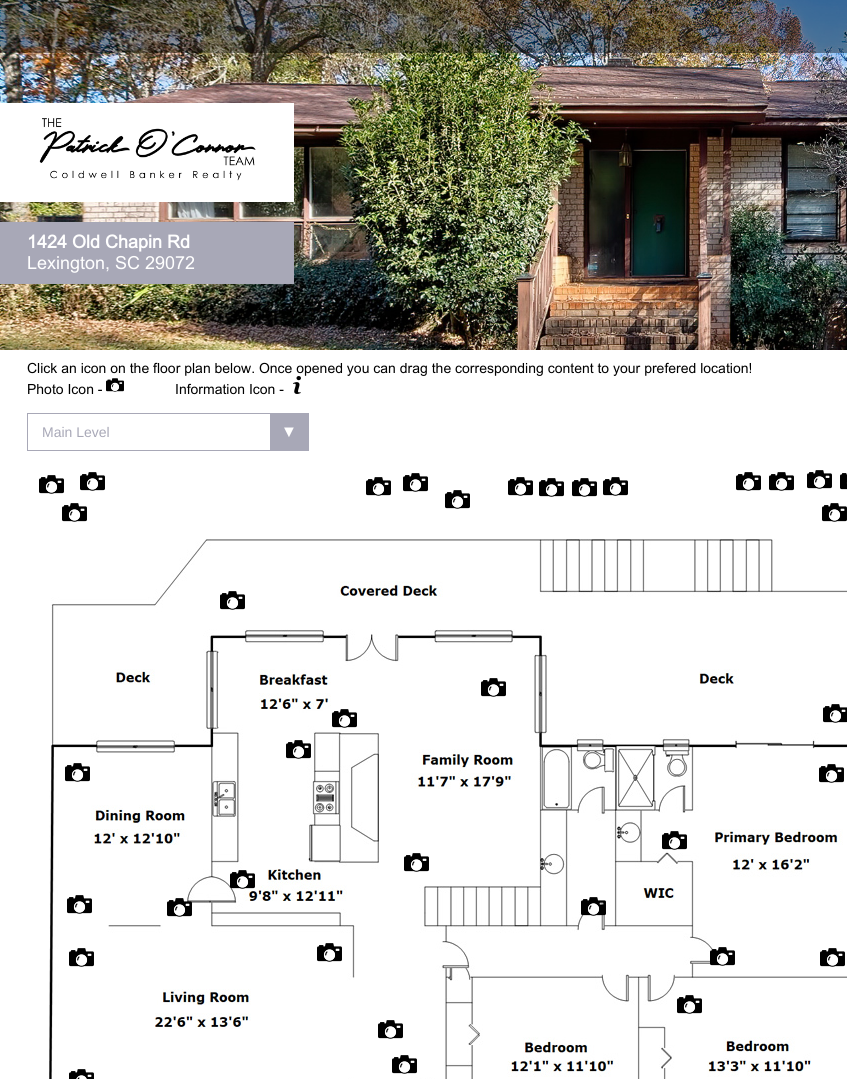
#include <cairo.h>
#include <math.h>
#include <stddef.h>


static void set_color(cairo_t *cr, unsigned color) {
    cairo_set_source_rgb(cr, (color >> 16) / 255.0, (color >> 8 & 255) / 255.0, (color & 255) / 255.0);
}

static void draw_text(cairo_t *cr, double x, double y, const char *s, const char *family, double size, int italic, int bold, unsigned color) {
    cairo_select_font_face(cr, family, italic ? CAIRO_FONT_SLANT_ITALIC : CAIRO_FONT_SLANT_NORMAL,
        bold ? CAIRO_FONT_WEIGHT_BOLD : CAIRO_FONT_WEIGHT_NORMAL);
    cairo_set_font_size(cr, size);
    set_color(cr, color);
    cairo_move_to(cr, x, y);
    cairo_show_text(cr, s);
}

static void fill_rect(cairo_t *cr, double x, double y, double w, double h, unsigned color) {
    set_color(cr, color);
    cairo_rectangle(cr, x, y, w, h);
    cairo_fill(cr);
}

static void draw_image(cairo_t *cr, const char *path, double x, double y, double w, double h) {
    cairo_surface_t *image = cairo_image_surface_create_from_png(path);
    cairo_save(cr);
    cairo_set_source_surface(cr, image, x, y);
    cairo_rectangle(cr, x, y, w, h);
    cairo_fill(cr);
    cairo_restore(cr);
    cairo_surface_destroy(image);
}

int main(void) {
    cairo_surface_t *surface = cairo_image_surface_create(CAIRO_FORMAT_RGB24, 847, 1079);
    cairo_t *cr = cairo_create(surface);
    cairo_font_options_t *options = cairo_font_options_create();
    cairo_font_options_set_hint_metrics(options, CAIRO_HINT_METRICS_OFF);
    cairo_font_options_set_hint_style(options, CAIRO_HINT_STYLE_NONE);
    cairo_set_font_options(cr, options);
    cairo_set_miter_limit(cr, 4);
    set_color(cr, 0xFFFFFF);
    cairo_paint(cr);
    draw_image(cr, "assets/img1.png", 0, 0, 847, 350);
    cairo_set_source_rgba(cr, 0, 0, 0, 0.4);
    cairo_rectangle(cr, 0, 0, 847, 53);
    cairo_fill(cr);
    fill_rect(cr, 0, 103, 294, 99, 0xFFFFFF);
    draw_image(cr, "assets/img2.png", 39, 118, 217, 63);
    fill_rect(cr, 0, 222, 294, 62, 0xA8A8B7);
    draw_text(cr, 27, 248, "1424 Old Chapin Rd", "Arial", 18, 0, 1, 0xFFFFFF);
    draw_text(cr, 27, 269, "Lexington, SC 29072", "Arial", 18, 0, 0, 0xFFFFFF);
    draw_text(cr, 27, 373, "Click an icon on the floor plan below. Once opened you can drag the corresponding content to your prefered location!", "Arial", 14, 0, 0, 0x000000);
    draw_text(cr, 27, 394, "Photo Icon -", "Arial", 14, 0, 0, 0x000000);
    draw_image(cr, "assets/img3.png", 106, 378, 18, 14);
    draw_text(cr, 175, 394, "Information Icon -", "Arial", 14, 0, 0, 0x000000);
    draw_image(cr, "assets/img4.png", 293, 376, 8, 18);
    cairo_rectangle(cr, 27.5, 413.5, 281, 37);
    set_color(cr, 0xA8A8B7);
    cairo_set_line_width(cr, 1);
    cairo_stroke(cr);
    draw_text(cr, 42, 437, "Main Level", "Liberation Sans", 14, 0, 0, 0xA8A8B7);
    fill_rect(cr, 270, 414, 38, 36, 0xA8A8B7);
    draw_text(cr, 282, 437, "▼", "Arial", 14, 0, 0, 0xFFFFFF);
    draw_image(cr, "assets/img5.png", 39, 475, 25, 19);
    draw_image(cr, "assets/img5.png", 80, 472, 25, 19);
    draw_image(cr, "assets/img5.png", 366, 477, 25, 19);
    draw_image(cr, "assets/img5.png", 403, 473, 25, 19);
    draw_image(cr, "assets/img5.png", 508, 477, 25, 19);
    draw_image(cr, "assets/img5.png", 539, 478, 25, 19);
    draw_image(cr, "assets/img5.png", 572, 478, 25, 19);
    draw_image(cr, "assets/img5.png", 603, 477, 25, 19);
    draw_image(cr, "assets/img5.png", 736, 472, 25, 19);
    draw_image(cr, "assets/img5.png", 769, 472, 25, 19);
    draw_image(cr, "assets/img5.png", 807, 470, 25, 19);
    draw_image(cr, "assets/img6.png", 840, 473, 7, 17);
    draw_image(cr, "assets/img5.png", 445, 490, 25, 19);
    draw_image(cr, "assets/img5.png", 62, 503, 25, 19);
    draw_image(cr, "assets/img5.png", 822, 503, 25, 19);
    draw_image(cr, "assets/img7.png", 49, 539, 798, 540);
    draw_image(cr, "assets/img5.png", 220, 591, 25, 19);
    draw_image(cr, "assets/img5.png", 481, 678, 25, 19);
    draw_image(cr, "assets/img8.png", 332, 709, 25, 19);
    draw_image(cr, "assets/img9.png", 823, 704, 24, 19);
    draw_image(cr, "assets/img10.png", 286, 740, 25, 19);
    draw_image(cr, "assets/img5.png", 65, 763, 25, 19);
    draw_image(cr, "assets/img5.png", 819, 764, 25, 19);
    draw_image(cr, "assets/img11.png", 662, 831, 25, 19);
    draw_image(cr, "assets/img5.png", 404, 853, 25, 19);
    draw_image(cr, "assets/img12.png", 230, 870, 25, 19);
    draw_image(cr, "assets/img5.png", 67, 895, 25, 19);
    draw_image(cr, "assets/img13.png", 167, 898, 25, 19);
    draw_image(cr, "assets/img14.png", 581, 897, 25, 19);
    draw_image(cr, "assets/img5.png", 69, 948, 25, 19);
    draw_image(cr, "assets/img5.png", 317, 943, 25, 19);
    draw_image(cr, "assets/img15.png", 710, 947, 25, 19);
    draw_image(cr, "assets/img5.png", 820, 948, 25, 19);
    draw_image(cr, "assets/img5.png", 677, 995, 25, 19);
    draw_image(cr, "assets/img5.png", 378, 1020, 25, 19);
    draw_image(cr, "assets/img16.png", 69, 1069, 25, 10);
    draw_image(cr, "assets/img5.png", 392, 1055, 25, 19);
    cairo_surface_write_to_png(surface, "output.png");
    cairo_font_options_destroy(options);
    cairo_destroy(cr);
    cairo_surface_destroy(surface);
    return 0;
}
